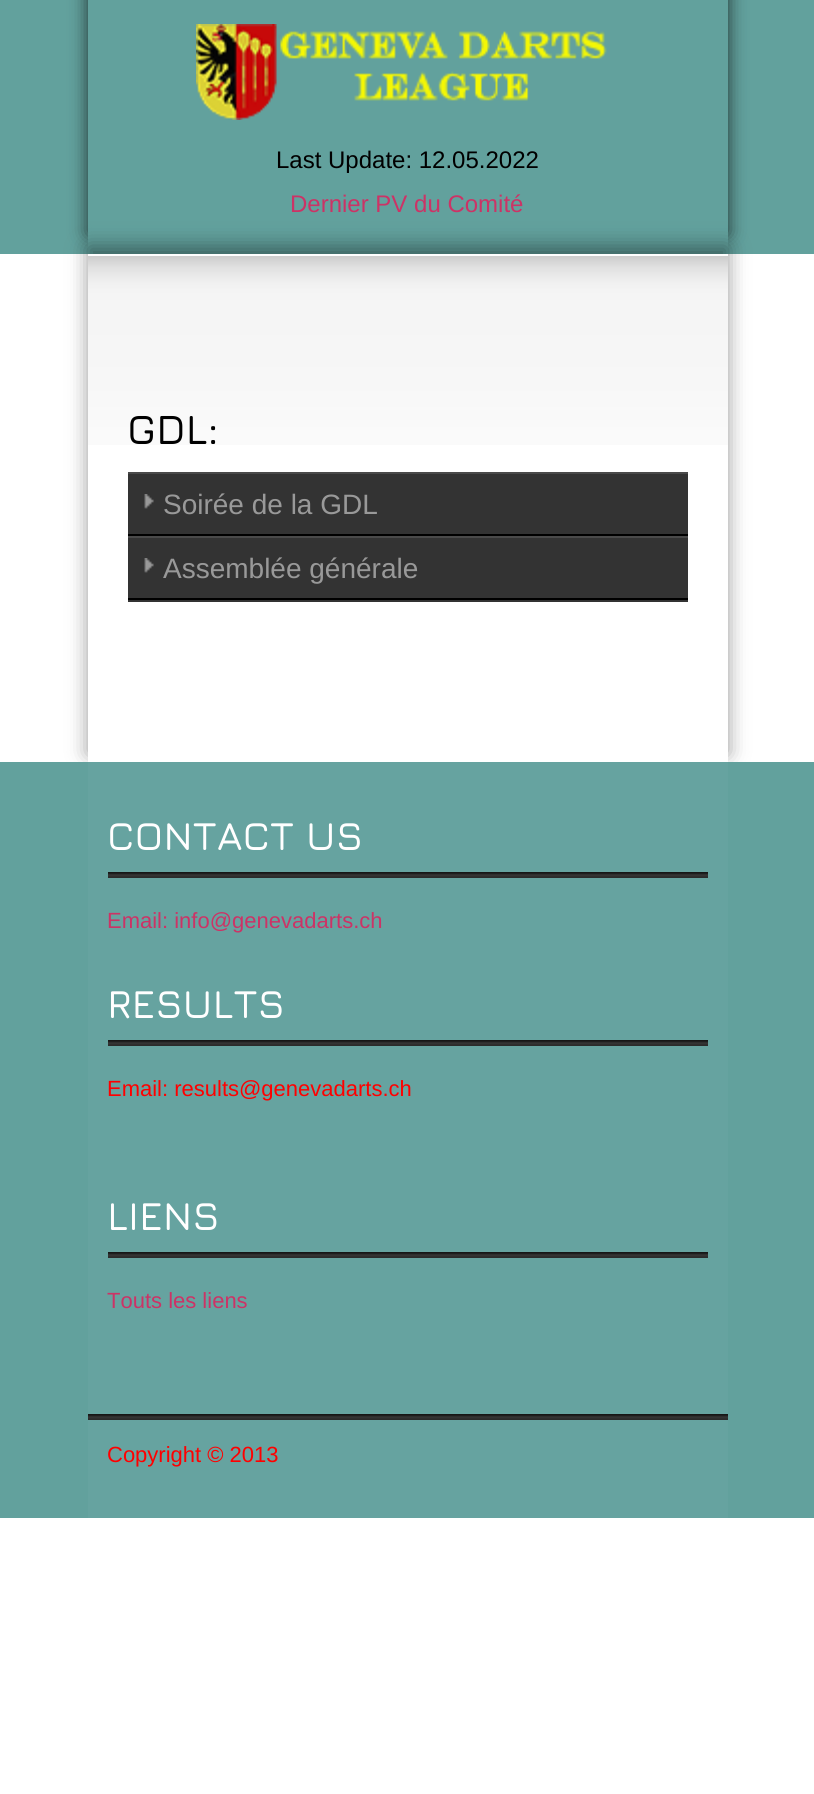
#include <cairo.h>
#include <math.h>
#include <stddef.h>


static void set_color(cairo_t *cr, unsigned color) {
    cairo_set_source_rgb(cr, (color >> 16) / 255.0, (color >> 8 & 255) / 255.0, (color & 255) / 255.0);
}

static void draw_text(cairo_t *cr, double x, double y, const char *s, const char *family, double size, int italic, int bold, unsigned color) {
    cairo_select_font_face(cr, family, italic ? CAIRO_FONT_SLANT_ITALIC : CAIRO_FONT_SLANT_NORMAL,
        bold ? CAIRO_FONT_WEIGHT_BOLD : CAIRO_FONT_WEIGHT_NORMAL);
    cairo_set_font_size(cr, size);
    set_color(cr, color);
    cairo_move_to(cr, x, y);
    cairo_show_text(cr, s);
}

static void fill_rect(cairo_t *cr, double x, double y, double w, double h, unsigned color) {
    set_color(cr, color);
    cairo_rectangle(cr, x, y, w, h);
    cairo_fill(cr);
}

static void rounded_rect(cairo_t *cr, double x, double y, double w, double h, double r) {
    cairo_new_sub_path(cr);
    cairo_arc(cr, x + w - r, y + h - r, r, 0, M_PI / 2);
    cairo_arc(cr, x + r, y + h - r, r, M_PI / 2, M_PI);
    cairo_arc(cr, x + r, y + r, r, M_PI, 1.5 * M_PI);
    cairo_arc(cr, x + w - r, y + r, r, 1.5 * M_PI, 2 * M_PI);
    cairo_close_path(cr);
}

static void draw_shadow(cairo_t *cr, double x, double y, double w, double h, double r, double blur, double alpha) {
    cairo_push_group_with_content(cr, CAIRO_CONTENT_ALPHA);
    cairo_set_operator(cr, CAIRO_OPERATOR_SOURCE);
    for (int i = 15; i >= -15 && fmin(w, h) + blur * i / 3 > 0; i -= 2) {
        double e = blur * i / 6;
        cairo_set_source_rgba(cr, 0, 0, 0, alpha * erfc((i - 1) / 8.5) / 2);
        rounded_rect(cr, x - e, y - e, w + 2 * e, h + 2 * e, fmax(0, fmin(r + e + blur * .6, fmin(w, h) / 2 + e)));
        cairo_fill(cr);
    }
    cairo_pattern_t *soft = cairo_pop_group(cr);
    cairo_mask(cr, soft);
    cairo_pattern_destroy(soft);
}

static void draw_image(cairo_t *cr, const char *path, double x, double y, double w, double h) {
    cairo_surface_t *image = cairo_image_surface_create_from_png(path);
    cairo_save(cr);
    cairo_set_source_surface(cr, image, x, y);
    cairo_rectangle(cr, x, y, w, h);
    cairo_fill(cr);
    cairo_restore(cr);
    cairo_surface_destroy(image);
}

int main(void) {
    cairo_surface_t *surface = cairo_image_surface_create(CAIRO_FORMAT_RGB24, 814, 1794);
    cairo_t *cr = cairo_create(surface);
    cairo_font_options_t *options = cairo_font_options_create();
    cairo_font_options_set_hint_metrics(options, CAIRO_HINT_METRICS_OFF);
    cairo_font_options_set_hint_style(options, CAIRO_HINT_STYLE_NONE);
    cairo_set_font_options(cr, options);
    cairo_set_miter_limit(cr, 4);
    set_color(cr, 0xFFFFFF);
    cairo_paint(cr);
    fill_rect(cr, 0, 0, 814, 254, 0x62A19D);
    cairo_save(cr);
    cairo_set_fill_rule(cr, CAIRO_FILL_RULE_EVEN_ODD);
    cairo_new_path(cr);
    cairo_move_to(cr, 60, 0);
    cairo_line_to(cr, 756, 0);
    cairo_line_to(cr, 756, 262);
    cairo_line_to(cr, 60, 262);
    cairo_close_path(cr);
    cairo_move_to(cr, 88, 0);
    cairo_line_to(cr, 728, 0);
    cairo_line_to(cr, 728, 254);
    cairo_line_to(cr, 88, 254);
    cairo_close_path(cr);
    cairo_clip(cr);
    set_color(cr, 0x000000);
    draw_shadow(cr, 88, -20, 640, 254, 0, 9, 0.7);
    cairo_restore(cr);
    draw_image(cr, "assets/img1.png", 196, 24, 411, 96);
    draw_text(cr, 276, 168, "Last Update: 12.05.2022", "Liberation Sans", 24, 0, 0, 0x000000);
    draw_text(cr, 290, 212, "Dernier PV du Comité", "Liberation Sans", 24, 0, 0, 0xCC3366);
    cairo_save(cr);
    cairo_set_fill_rule(cr, CAIRO_FILL_RULE_EVEN_ODD);
    cairo_new_path(cr);
    cairo_move_to(cr, 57, 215);
    cairo_line_to(cr, 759, 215);
    cairo_line_to(cr, 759, 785);
    cairo_line_to(cr, 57, 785);
    cairo_close_path(cr);
    cairo_move_to(cr, 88, 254);
    cairo_line_to(cr, 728, 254);
    cairo_line_to(cr, 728, 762);
    cairo_line_to(cr, 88, 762);
    cairo_close_path(cr);
    cairo_clip(cr);
    set_color(cr, 0x000000);
    draw_shadow(cr, 88, 246, 640, 508, 0, 10, 0.4);
    cairo_restore(cr);
    draw_image(cr, "assets/img2.png", 88, 256, 640, 189);
    draw_text(cr, 127, 444, "GDL:", "Jura SemiBold", 42, 0, 0, 0x000000);
    fill_rect(cr, 128, 600, 560, 2, 0x333333);
    fill_rect(cr, 128, 474, 560, 60, 0x333333);
    draw_image(cr, "assets/img3.png", 144, 494, 10, 15);
    fill_rect(cr, 128, 472, 560, 2, 0x4A4A4A);
    fill_rect(cr, 128, 534, 560, 2, 0x000000);
    draw_text(cr, 163, 514, "Soirée de la GDL", "Liberation Sans", 28, 0, 0, 0x999999);
    fill_rect(cr, 128, 538, 560, 60, 0x333333);
    draw_image(cr, "assets/img3.png", 144, 558, 10, 15);
    fill_rect(cr, 128, 536, 560, 2, 0x4A4A4A);
    fill_rect(cr, 128, 598, 560, 2, 0x000000);
    draw_text(cr, 163, 578, "Assemblée générale", "Liberation Sans", 28, 0, 0, 0x999999);
    fill_rect(cr, 0, 762, 814, 756, 0x62A19D);
    fill_rect(cr, 88, 762, 640, 756, 0x66A3A0);
    draw_image(cr, "assets/img4.png", 108, 872, 600, 6);
    draw_text(cr, 107, 850, "CONTACT US", "Jura SemiBold", 40, 0, 0, 0xFFFFFF);
    draw_text(cr, 107, 928, "Email: info@genevadarts.ch", "Liberation Sans", 22, 0, 0, 0xCC3366);
    draw_image(cr, "assets/img4.png", 108, 1040, 600, 6);
    draw_text(cr, 107, 1018, "RESULTS", "Jura SemiBold", 40, 0, 0, 0xFFFFFF);
    draw_text(cr, 107, 1096, "Email: results@genevadarts.ch", "Liberation Sans", 22, 0, 0, 0xFF0000);
    draw_image(cr, "assets/img4.png", 108, 1252, 600, 6);
    draw_text(cr, 107, 1230, "LIENS", "Jura SemiBold", 40, 0, 0, 0xFFFFFF);
    draw_text(cr, 107, 1308, "Touts les liens", "Liberation Sans", 22, 0, 0, 0xCC3366);
    draw_image(cr, "assets/img5.png", 88, 1414, 640, 6);
    draw_text(cr, 107, 1462, "Copyright © 2013", "Liberation Sans", 22, 0, 0, 0xFF0000);
    cairo_surface_write_to_png(surface, "output.png");
    cairo_font_options_destroy(options);
    cairo_destroy(cr);
    cairo_surface_destroy(surface);
    return 0;
}
